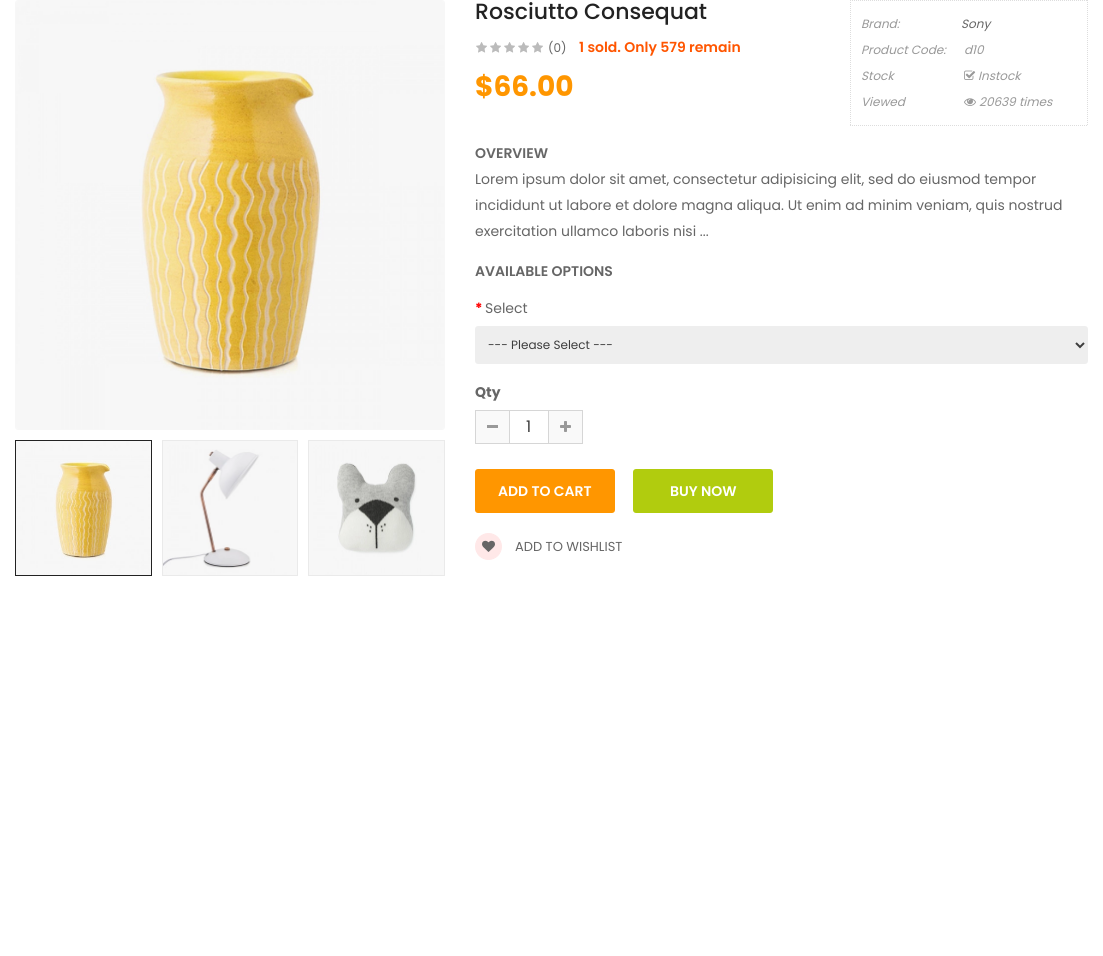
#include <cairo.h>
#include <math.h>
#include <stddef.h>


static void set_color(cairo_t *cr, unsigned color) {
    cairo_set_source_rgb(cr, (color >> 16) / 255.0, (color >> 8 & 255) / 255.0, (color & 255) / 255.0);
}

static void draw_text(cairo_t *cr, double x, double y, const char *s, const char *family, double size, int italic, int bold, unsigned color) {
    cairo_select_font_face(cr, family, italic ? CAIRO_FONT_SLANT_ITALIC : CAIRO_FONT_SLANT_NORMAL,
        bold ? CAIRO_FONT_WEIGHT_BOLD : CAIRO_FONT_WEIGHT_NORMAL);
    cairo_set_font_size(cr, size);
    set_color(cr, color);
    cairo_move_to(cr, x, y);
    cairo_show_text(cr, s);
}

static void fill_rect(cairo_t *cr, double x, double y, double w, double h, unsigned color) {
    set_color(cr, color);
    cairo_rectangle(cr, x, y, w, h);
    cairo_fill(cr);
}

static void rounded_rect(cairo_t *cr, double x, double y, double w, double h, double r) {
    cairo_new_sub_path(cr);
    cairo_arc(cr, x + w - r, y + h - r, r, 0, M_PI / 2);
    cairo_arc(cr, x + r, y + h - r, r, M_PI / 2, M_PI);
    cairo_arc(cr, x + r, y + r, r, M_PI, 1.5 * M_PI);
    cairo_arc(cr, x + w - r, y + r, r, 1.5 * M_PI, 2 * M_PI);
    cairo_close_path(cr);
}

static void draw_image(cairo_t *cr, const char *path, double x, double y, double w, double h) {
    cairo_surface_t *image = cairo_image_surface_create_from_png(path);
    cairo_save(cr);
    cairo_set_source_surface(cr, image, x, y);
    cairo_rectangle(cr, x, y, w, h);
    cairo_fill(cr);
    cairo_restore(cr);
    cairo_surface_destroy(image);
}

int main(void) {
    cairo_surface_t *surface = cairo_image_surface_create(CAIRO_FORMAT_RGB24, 1103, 956);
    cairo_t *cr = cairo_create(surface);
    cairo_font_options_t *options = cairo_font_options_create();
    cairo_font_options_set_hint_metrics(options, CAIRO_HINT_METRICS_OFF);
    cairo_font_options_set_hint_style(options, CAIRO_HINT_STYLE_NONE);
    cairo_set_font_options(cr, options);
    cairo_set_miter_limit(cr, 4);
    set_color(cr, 0xFFFFFF);
    cairo_paint(cr);
    rounded_rect(cr, 15.5, 0.5, 429, 429, 2.5);
    set_color(cr, 0xF7F7F7);
    cairo_set_line_width(cr, 1);
    cairo_stroke(cr);
    draw_image(cr, "assets/img1.png", 16, 1, 428, 428);
    cairo_rectangle(cr, 15.5, 440.5, 136, 135);
    set_color(cr, 0x222222);
    cairo_stroke(cr);
    draw_image(cr, "assets/img2.png", 16, 441, 135, 134);
    cairo_rectangle(cr, 162.5, 440.5, 135, 135);
    set_color(cr, 0xEAEAEA);
    cairo_stroke(cr);
    draw_image(cr, "assets/img3.png", 163, 441, 134, 134);
    cairo_rectangle(cr, 308.5, 440.5, 136, 135);
    cairo_stroke(cr);
    draw_image(cr, "assets/img4.png", 309, 441, 135, 134);
    draw_text(cr, 475, 19, "Rosciutto Consequat", "Poppins Medium", 22, 0, 0, 0x222222);
    draw_image(cr, "assets/img5.png", 476, 42, 11, 11);
    draw_image(cr, "assets/img5.png", 490, 42, 11, 11);
    draw_image(cr, "assets/img5.png", 504, 42, 11, 11);
    draw_image(cr, "assets/img5.png", 518, 42, 11, 11);
    draw_image(cr, "assets/img5.png", 532, 42, 11, 11);
    draw_text(cr, 548, 52, "(0)", "Poppins", 12, 0, 0, 0x666666);
    draw_text(cr, 579, 52, "1 sold. Only 579 remain", "Poppins SemiBold", 14, 0, 0, 0xFF5500);
    draw_text(cr, 475, 96, "$66.00", "Poppins", 28, 0, 1, 0xFF9600);
    cairo_new_path(cr);
    cairo_move_to(cr, 850, 0.5);
    cairo_line_to(cr, 1088, 0.5);
    set_color(cr, 0xDDDDDD);
    cairo_set_dash(cr, (double[]){1, 1}, 2, 0);
    cairo_stroke(cr);
    cairo_new_path(cr);
    cairo_move_to(cr, 1087.5, 0);
    cairo_line_to(cr, 1087.5, 126);
    cairo_stroke(cr);
    cairo_new_path(cr);
    cairo_move_to(cr, 850, 125.5);
    cairo_line_to(cr, 1088, 125.5);
    cairo_stroke(cr);
    cairo_new_path(cr);
    cairo_move_to(cr, 850.5, 0);
    cairo_line_to(cr, 850.5, 126);
    cairo_stroke(cr);
    draw_text(cr, 861, 28, "Brand:", "Poppins", 12, 1, 0, 0x999999);
    draw_text(cr, 961, 28, "Sony", "Poppins", 12, 1, 0, 0x666666);
    draw_text(cr, 861, 54, "Product Code:", "Poppins", 12, 1, 0, 0x999999);
    draw_text(cr, 964, 54, "d10", "Poppins", 12, 1, 0, 0x999999);
    draw_text(cr, 861, 80, "Stock", "Poppins", 12, 1, 0, 0x999999);
    draw_image(cr, "assets/img6.png", 964, 70, 12, 10);
    draw_text(cr, 978, 80, "Instock", "Poppins", 12, 1, 0, 0x999999);
    draw_text(cr, 861, 106, "Viewed", "Poppins", 12, 1, 0, 0x999999);
    draw_image(cr, "assets/img7.png", 964, 98, 12, 8);
    draw_text(cr, 979, 106, "20639 times", "Poppins", 12, 1, 0, 0x999999);
    draw_text(cr, 475, 158, "OVERVIEW", "Poppins SemiBold", 14, 0, 0, 0x666666);
    draw_text(cr, 475, 184, "Lorem ipsum dolor sit amet, consectetur adipisicing elit, sed do eiusmod tempor", "Poppins", 14, 0, 0, 0x666666);
    draw_text(cr, 475, 210, "incididunt ut labore et dolore magna aliqua. Ut enim ad minim veniam, quis nostrud", "Poppins", 14, 0, 0, 0x666666);
    draw_text(cr, 475, 236, "exercitation ullamco laboris nisi ...", "Poppins", 14, 0, 0, 0x666666);
    draw_text(cr, 475, 276, "AVAILABLE OPTIONS", "Poppins SemiBold", 14, 0, 0, 0x666666);
    draw_text(cr, 475, 313, "*", "Poppins", 14, 0, 1, 0xFF0000);
    draw_text(cr, 485, 313, "Select", "Poppins", 14, 0, 0, 0x666666);
    set_color(cr, 0xEEEEEE);
    rounded_rect(cr, 475, 326, 613, 38, 3);
    cairo_fill(cr);
    cairo_new_path(cr);
    cairo_move_to(cr, 1076, 343);
    cairo_line_to(cr, 1080, 347);
    cairo_line_to(cr, 1084, 343);
    set_color(cr, 0x3D3D3D);
    cairo_set_line_width(cr, 2);
    cairo_set_dash(cr, NULL, 0, 0);
    cairo_stroke(cr);
    draw_text(cr, 488, 349, "--- Please Select ---", "Poppins", 12, 0, 0, 0x3D3D3D);
    draw_text(cr, 475, 397, "Qty", "Poppins", 14, 0, 1, 0x666666);
    cairo_rectangle(cr, 475.5, 410.5, 107, 33);
    set_color(cr, 0xD6D6D6);
    cairo_set_line_width(cr, 1);
    cairo_stroke(cr);
    fill_rect(cr, 476, 411, 33, 32, 0xF9F9F9);
    fill_rect(cr, 487, 425, 11, 3, 0x999999);
    fill_rect(cr, 548, 411, 1, 32, 0xD6D6D6);
    fill_rect(cr, 509, 411, 1, 32, 0xD6D6D6);
    draw_text(cr, 526, 432, "1", "Poppins", 16, 0, 0, 0x3D3D3D);
    fill_rect(cr, 549, 411, 33, 32, 0xF9F9F9);
    draw_image(cr, "assets/img8.png", 560, 421, 11, 11);
    set_color(cr, 0xFF9600);
    rounded_rect(cr, 475, 469, 140, 44, 3);
    cairo_fill(cr);
    draw_text(cr, 498, 496, "ADD TO CART", "Poppins SemiBold", 14, 0, 0, 0xFFFFFF);
    set_color(cr, 0xB1CC0E);
    rounded_rect(cr, 633, 469, 140, 44, 3);
    cairo_fill(cr);
    draw_text(cr, 670, 496, "BUY NOW", "Poppins SemiBold", 14, 0, 0, 0xFFFFFF);
    set_color(cr, 0xFFE8E8);
    cairo_new_path(cr);
    cairo_arc(cr, 488.5, 546.5, 13, 0, 2 * M_PI);
    cairo_fill_preserve(cr);
    cairo_stroke(cr);
    draw_image(cr, "assets/img9.png", 482, 540, 13, 12);
    draw_text(cr, 515, 551, "ADD TO WISHLIST", "Poppins", 13, 0, 0, 0x666666);
    cairo_surface_write_to_png(surface, "output.png");
    cairo_font_options_destroy(options);
    cairo_destroy(cr);
    cairo_surface_destroy(surface);
    return 0;
}
